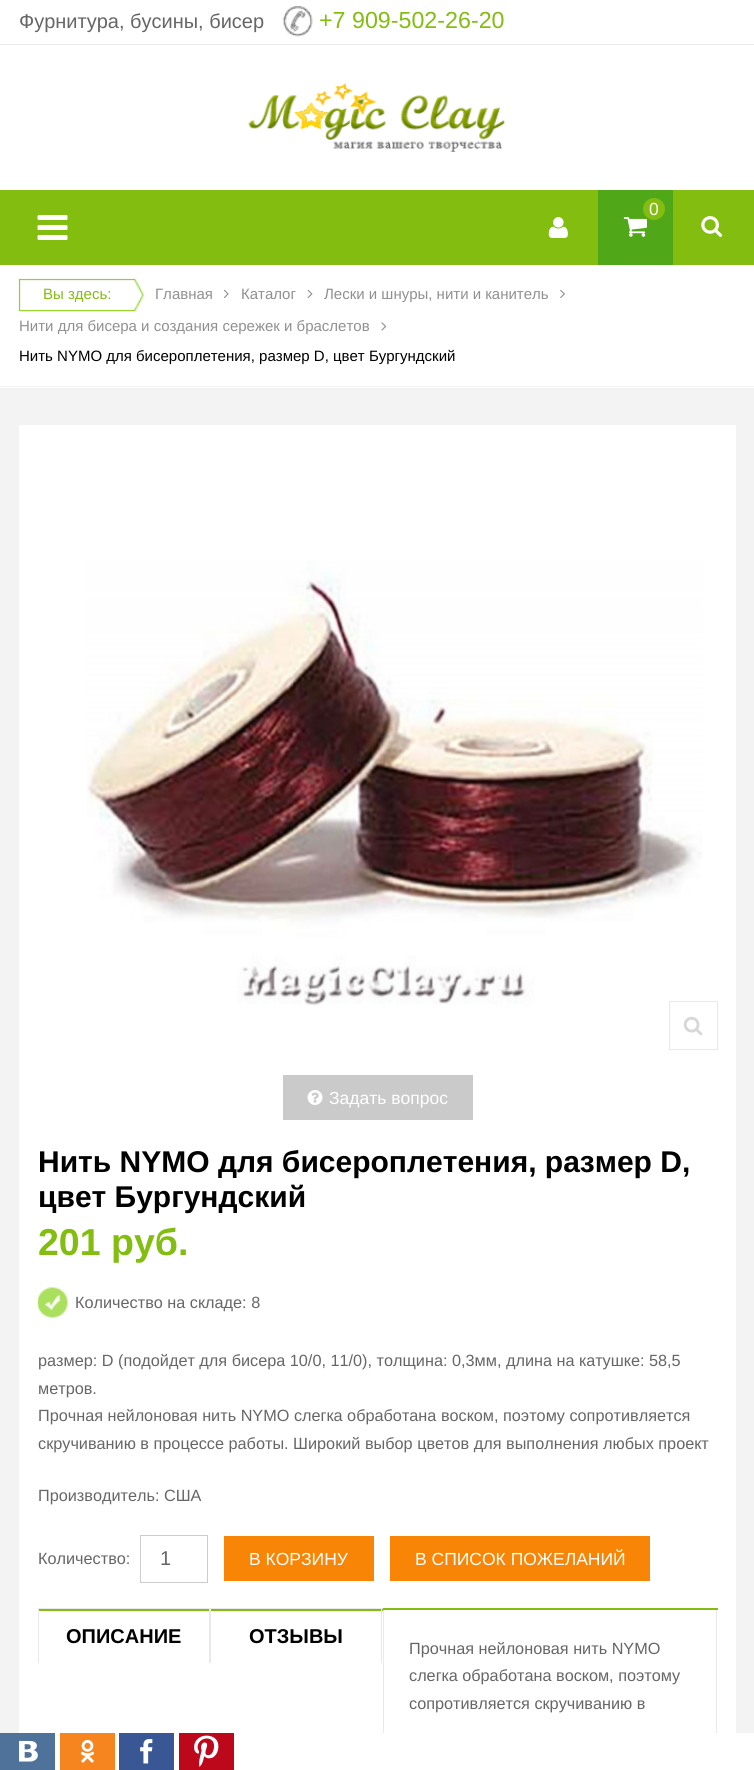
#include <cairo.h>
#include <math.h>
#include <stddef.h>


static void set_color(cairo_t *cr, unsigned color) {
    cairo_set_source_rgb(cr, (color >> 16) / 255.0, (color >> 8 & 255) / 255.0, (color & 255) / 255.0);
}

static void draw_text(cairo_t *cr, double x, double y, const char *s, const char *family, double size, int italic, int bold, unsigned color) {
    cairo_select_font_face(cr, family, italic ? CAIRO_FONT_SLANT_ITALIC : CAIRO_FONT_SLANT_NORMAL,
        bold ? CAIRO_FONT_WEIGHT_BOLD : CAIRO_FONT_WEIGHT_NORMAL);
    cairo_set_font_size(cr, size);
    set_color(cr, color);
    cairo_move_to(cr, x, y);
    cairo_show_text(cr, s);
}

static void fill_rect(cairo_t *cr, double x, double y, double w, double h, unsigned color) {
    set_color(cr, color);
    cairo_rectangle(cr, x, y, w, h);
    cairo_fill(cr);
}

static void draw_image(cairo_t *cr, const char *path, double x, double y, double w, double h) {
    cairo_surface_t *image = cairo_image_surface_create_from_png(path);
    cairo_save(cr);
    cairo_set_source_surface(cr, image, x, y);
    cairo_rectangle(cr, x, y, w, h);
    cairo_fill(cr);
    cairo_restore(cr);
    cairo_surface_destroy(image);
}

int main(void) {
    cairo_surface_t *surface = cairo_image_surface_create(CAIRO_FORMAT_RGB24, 754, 1770);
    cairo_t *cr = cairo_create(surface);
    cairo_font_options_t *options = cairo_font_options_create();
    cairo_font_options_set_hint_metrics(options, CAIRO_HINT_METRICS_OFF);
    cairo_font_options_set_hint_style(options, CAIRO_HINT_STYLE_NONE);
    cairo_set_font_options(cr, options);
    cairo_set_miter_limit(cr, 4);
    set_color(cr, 0xF3F3F3);
    cairo_paint(cr);
    fill_rect(cr, 0, 0, 754, 44, 0xFFFFFF);
    fill_rect(cr, 0, 44, 754, 1, 0xEAEAEA);
    draw_text(cr, 19, 28, "Фурнитура, бусины, бисер", "Liberation Sans", 20, 0, 0, 0x666666);
    draw_image(cr, "assets/img1.png", 282, 6, 31, 31);
    draw_text(cr, 319, 28, "+7 909-502-26-20", "Liberation Sans", 23.25, 0, 0, 0x82BD10);
    fill_rect(cr, 0, 190, 754, 75, 0x82BD10);
    draw_image(cr, "assets/img2.png", 548, 217, 20, 21);
    draw_image(cr, "assets/img3.png", 37, 215, 31, 25);
    fill_rect(cr, 0, 45, 754, 145, 0xFFFFFF);
    draw_image(cr, "assets/img4.png", 248, 83, 258, 69);
    fill_rect(cr, 598, 190, 75, 75, 0x50A718);
    draw_image(cr, "assets/img5.png", 623, 217, 24, 20);
    set_color(cr, 0x82BD10);
    cairo_arc(cr, 654, 209, 11, 0, 2 * M_PI);
    cairo_fill(cr);
    draw_text(cr, 649, 215, "0", "Liberation Sans", 17.5, 0, 0, 0xFFFFFF);
    draw_image(cr, "assets/img6.png", 701, 216, 22, 21);
    fill_rect(cr, 0, 265, 754, 123, 0xFFFFFF);
    fill_rect(cr, 0, 386, 754, 1, 0xF3F3F3);
    draw_image(cr, "assets/img7.png", 18, 278, 126, 34);
    draw_text(cr, 43, 299, "Вы здесь:", "Liberation Sans", 15, 0, 0, 0x82BD10);
    draw_text(cr, 155, 299, "Главная", "Liberation Sans", 15, 0, 0, 0x909090);
    draw_image(cr, "assets/img8.png", 223, 289, 6, 9);
    draw_text(cr, 241, 299, "Каталог", "Liberation Sans", 15, 0, 0, 0x909090);
    draw_image(cr, "assets/img9.png", 307, 289, 6, 9);
    draw_text(cr, 324, 299, "Лески и шнуры, нити и канитель", "Liberation Sans", 15, 0, 0, 0x909090);
    draw_image(cr, "assets/img10.png", 560, 289, 5, 9);
    draw_text(cr, 19, 331, "Нити для бисера и создания сережек и браслетов", "Liberation Sans", 15, 0, 0, 0x909090);
    draw_image(cr, "assets/img11.png", 381, 322, 6, 9);
    draw_text(cr, 19, 361, "Нить NYMO для бисероплетения, размер D, цвет Бургундский", "Liberation Sans", 15, 0, 0, 0x000000);
    fill_rect(cr, 19, 425, 717, 1308, 0xFFFFFF);
    draw_image(cr, "assets/img12.png", 87, 560, 616, 445);
    cairo_rectangle(cr, 669.5, 1001.5, 48, 48);
    set_color(cr, 0xE9E9E9);
    cairo_set_line_width(cr, 1);
    cairo_stroke(cr);
    draw_image(cr, "assets/img13.png", 683, 1016, 20, 20);
    fill_rect(cr, 283, 1075, 190, 45, 0xCBCACA);
    draw_image(cr, "assets/img14.png", 307, 1090, 16, 15);
    draw_text(cr, 329, 1104, "Задать вопрос", "Liberation Sans", 17.5, 0, 0, 0xFFFFFF);
    draw_text(cr, 38, 1172, "Нить NYMO для бисероплетения, размер D,", "Liberation Sans", 30, 0, 1, 0x000000);
    draw_text(cr, 38, 1207, "цвет Бургундский", "Liberation Sans", 30, 0, 1, 0x000000);
    draw_text(cr, 38, 1255, "201 руб.", "Liberation Sans", 37.5, 0, 1, 0x82BD10);
    draw_image(cr, "assets/img15.png", 38, 1287, 30, 31);
    draw_text(cr, 75, 1308, "Количество на складе: 8", "Liberation Sans", 16.25, 0, 0, 0x666666);
    draw_text(cr, 38, 1366, "размер: D (подойдет для бисера 10/0, 11/0), толщина: 0,3мм, длина на катушке: 58,5", "Liberation Sans", 16.25, 0, 0, 0x666666);
    draw_text(cr, 38, 1394, "метров.", "Liberation Sans", 16.25, 0, 0, 0x666666);
    draw_text(cr, 38, 1421, "Прочная нейлоновая нить NYMO слегка обработана воском, поэтому сопротивляется", "Liberation Sans", 16.25, 0, 0, 0x666666);
    draw_text(cr, 38, 1449, "скручиванию в процессе работы. Широкий выбор цветов для выполнения любых проект", "Liberation Sans", 16.25, 0, 0, 0x666666);
    draw_text(cr, 38, 1501, "Производитель: США", "Liberation Sans", 16.25, 0, 0, 0x666666);
    draw_text(cr, 38, 1564, "Количество:", "Liberation Sans", 16.25, 0, 0, 0x666666);
    cairo_rectangle(cr, 140.5, 1535.5, 67, 47);
    set_color(cr, 0xCCCCCC);
    cairo_stroke(cr);
    draw_text(cr, 160, 1565, "1", "Liberation Sans", 20, 0, 0, 0x666666);
    fill_rect(cr, 224, 1536, 150, 45, 0xF88506);
    draw_text(cr, 249, 1565, "В КОРЗИНУ", "Liberation Sans", 17.5, 0, 0, 0xFFFFFF);
    fill_rect(cr, 390, 1536, 260, 45, 0xF88506);
    draw_text(cr, 415, 1565, "В СПИСОК ПОЖЕЛАНИЙ", "Liberation Sans", 17.5, 0, 0, 0xFFFFFF);
    fill_rect(cr, 38, 1608, 680, 3, 0x82BD10);
    fill_rect(cr, 38, 1608, 345, 1, 0xE9E9E9);
    fill_rect(cr, 209, 1608, 2, 55, 0xE9E9E9);
    fill_rect(cr, 38, 1608, 1, 55, 0xE9E9E9);
    draw_text(cr, 66, 1643, "ОПИСАНИЕ", "Liberation Sans", 20, 0, 1, 0x000000);
    fill_rect(cr, 381, 1608, 1, 55, 0xE9E9E9);
    draw_text(cr, 249, 1643, "ОТЗЫВЫ", "Liberation Sans", 20, 0, 1, 0x000000);
    fill_rect(cr, 384, 1610, 334, 1, 0xFFFFFF);
    fill_rect(cr, 716, 1610, 1, 123, 0xE9E9E9);
    fill_rect(cr, 383, 1610, 1, 123, 0xE9E9E9);
    draw_text(cr, 409, 1654, "Прочная нейлоновая нить NYMO", "Liberation Sans", 16.25, 0, 0, 0x666666);
    draw_text(cr, 409, 1681, "слегка обработана воском, поэтому", "Liberation Sans", 16.25, 0, 0, 0x666666);
    draw_text(cr, 409, 1709, "сопротивляется скручиванию в", "Liberation Sans", 16.25, 0, 0, 0x666666);
    fill_rect(cr, 55, 1733, 699, 37, 0xFFFFFF);
    fill_rect(cr, 0, 1733, 55, 37, 0x4E7299);
    draw_image(cr, "assets/img16.png", 19, 1740, 19, 22);
    fill_rect(cr, 60, 1733, 55, 37, 0xF6851F);
    draw_image(cr, "assets/img17.png", 80, 1739, 15, 24);
    fill_rect(cr, 119, 1733, 55, 37, 0x3A5795);
    draw_image(cr, "assets/img18.png", 140, 1739, 13, 25);
    fill_rect(cr, 179, 1733, 55, 37, 0xBD081C);
    draw_image(cr, "assets/img19.png", 194, 1735, 25, 32);
    cairo_surface_write_to_png(surface, "output.png");
    cairo_font_options_destroy(options);
    cairo_destroy(cr);
    cairo_surface_destroy(surface);
    return 0;
}
